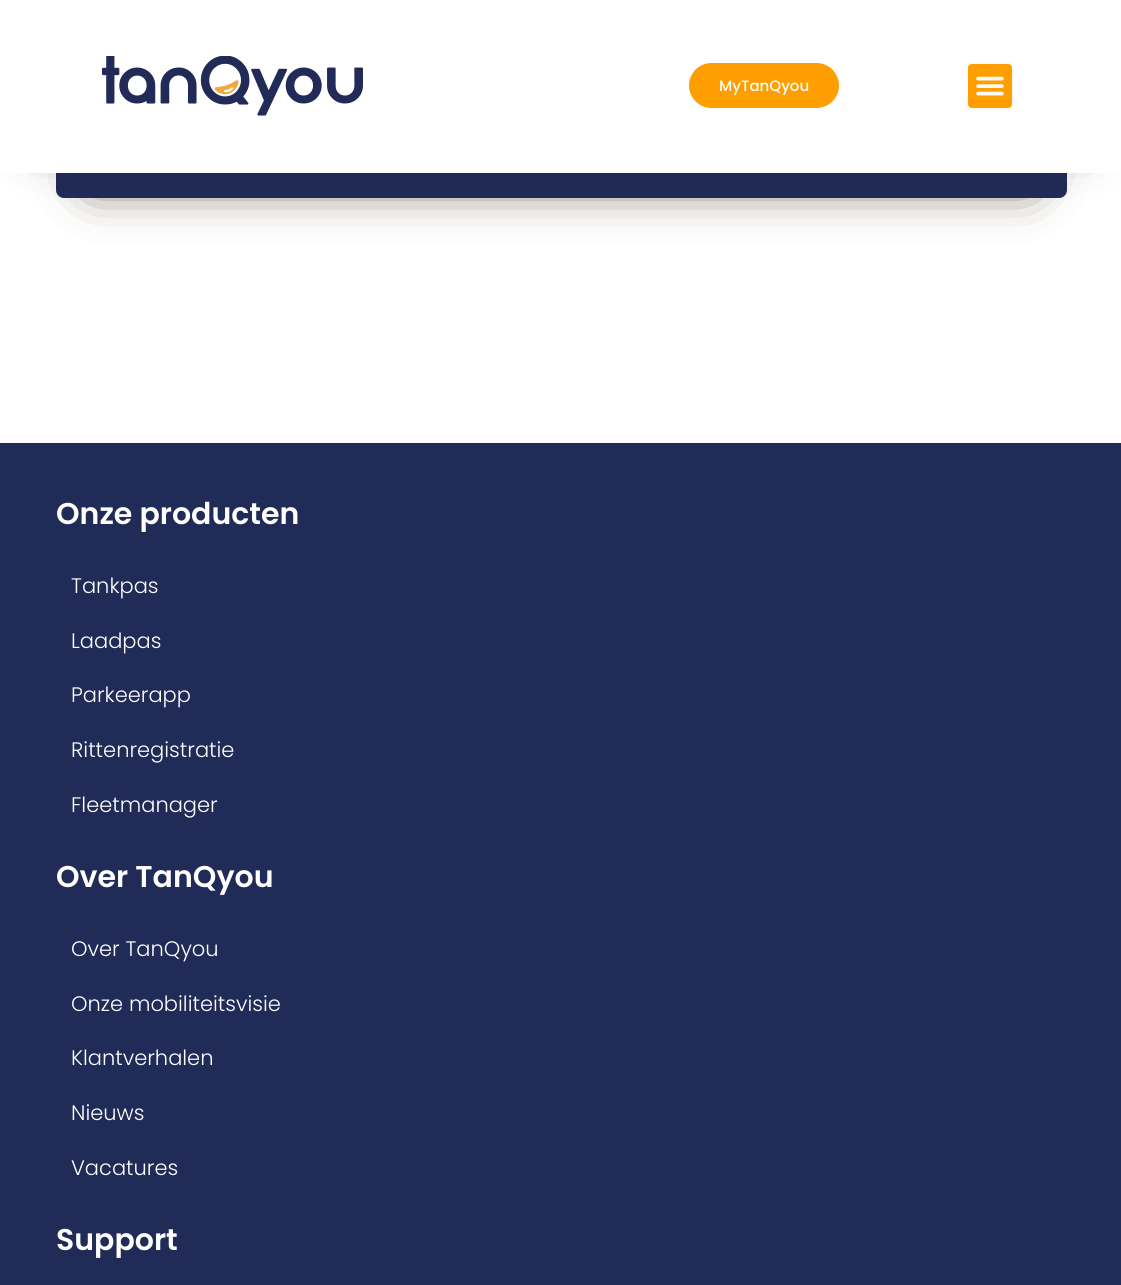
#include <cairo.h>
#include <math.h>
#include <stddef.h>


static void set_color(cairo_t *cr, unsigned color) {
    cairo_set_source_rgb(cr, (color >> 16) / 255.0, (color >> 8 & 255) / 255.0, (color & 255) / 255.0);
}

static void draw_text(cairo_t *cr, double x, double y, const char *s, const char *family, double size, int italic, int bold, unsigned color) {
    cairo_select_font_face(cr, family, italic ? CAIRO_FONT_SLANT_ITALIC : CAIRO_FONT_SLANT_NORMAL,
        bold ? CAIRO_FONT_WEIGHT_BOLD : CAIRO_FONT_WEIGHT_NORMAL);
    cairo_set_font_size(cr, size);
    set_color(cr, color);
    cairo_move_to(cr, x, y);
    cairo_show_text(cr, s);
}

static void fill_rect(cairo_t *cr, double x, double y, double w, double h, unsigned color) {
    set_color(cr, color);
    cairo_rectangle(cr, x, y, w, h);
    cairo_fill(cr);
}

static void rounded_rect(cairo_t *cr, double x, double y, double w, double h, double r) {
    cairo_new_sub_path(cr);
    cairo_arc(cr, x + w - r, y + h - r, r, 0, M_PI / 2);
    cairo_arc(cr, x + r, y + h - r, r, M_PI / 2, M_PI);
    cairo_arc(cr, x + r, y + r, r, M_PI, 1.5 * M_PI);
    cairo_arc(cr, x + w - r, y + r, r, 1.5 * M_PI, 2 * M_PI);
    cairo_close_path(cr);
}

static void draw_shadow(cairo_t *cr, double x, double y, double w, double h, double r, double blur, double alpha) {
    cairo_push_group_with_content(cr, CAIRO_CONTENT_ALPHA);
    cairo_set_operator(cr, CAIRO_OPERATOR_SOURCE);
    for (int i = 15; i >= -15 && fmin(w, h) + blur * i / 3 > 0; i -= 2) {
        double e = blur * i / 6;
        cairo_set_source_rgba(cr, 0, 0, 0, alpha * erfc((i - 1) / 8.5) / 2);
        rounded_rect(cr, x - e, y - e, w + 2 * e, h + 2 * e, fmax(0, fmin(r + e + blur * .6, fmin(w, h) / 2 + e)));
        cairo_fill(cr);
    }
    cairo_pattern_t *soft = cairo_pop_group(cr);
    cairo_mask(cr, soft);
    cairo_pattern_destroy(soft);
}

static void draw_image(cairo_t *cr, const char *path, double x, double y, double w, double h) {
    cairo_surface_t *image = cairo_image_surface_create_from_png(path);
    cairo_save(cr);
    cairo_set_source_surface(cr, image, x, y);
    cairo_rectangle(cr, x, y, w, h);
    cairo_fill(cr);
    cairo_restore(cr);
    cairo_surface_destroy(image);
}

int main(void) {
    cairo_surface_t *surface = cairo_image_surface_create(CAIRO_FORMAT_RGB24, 1121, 1285);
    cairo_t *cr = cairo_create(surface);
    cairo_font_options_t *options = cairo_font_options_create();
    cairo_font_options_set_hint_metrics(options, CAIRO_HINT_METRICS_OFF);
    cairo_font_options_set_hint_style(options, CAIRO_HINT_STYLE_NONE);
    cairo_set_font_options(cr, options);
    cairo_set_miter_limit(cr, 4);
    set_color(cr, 0xFFFFFF);
    cairo_paint(cr);
    set_color(cr, 0x2E1C00);
    draw_shadow(cr, 93, -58, 936, 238, 0, 25.5, 1);
    set_color(cr, 0x212B57);
    rounded_rect(cr, 56, -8, 1011, 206, 8);
    cairo_fill(cr);
    set_color(cr, 0x000000);
    draw_shadow(cr, 33, 45, 1056, 107, 0, 22.5, 0.25);
    fill_rect(cr, 0, 0, 1121, 173, 0xFFFFFF);
    draw_image(cr, "assets/img1.png", 102, 56, 261, 60);
    set_color(cr, 0xFF9E00);
    rounded_rect(cr, 689, 63, 150, 45, 22.5);
    cairo_fill(cr);
    draw_text(cr, 719, 91, "MyTanQyou", "Poppins Medium", 15, 0, 0, 0xFFFFFF);
    set_color(cr, 0xFF9E00);
    rounded_rect(cr, 967, 63, 46, 46, 5);
    cairo_fill_preserve(cr);
    set_color(cr, 0xFAFAFA);
    cairo_stroke(cr);
    draw_image(cr, "assets/img2.png", 976, 76, 28, 20);
    fill_rect(cr, 0, 443, 1121, 842, 0x212B57);
    draw_text(cr, 56, 524, "Onze producten", "Poppins SemiBold", 30, 0, 0, 0xFFFFFF);
    draw_text(cr, 71, 593, "Tankpas", "Poppins Light", 21, 0, 0, 0xFFFFFF);
    draw_text(cr, 71, 648, "Laadpas", "Poppins Light", 21, 0, 0, 0xFFFFFF);
    draw_text(cr, 71, 702, "Parkeerapp", "Poppins Light", 21, 0, 0, 0xFFFFFF);
    draw_text(cr, 71, 757, "Rittenregistratie", "Poppins Light", 21, 0, 0, 0xFFFFFF);
    draw_text(cr, 71, 812, "Fleetmanager", "Poppins Light", 21, 0, 0, 0xFFFFFF);
    draw_text(cr, 56, 887, "Over TanQyou", "Poppins SemiBold", 30, 0, 0, 0xFFFFFF);
    draw_text(cr, 71, 956, "Over TanQyou", "Poppins Light", 21, 0, 0, 0xFFFFFF);
    draw_text(cr, 71, 1011, "Onze mobiliteitsvisie", "Poppins Light", 21, 0, 0, 0xFFFFFF);
    draw_text(cr, 71, 1065, "Klantverhalen", "Poppins Light", 21, 0, 0, 0xFFFFFF);
    draw_text(cr, 71, 1120, "Nieuws", "Poppins Light", 21, 0, 0, 0xFFFFFF);
    draw_text(cr, 71, 1175, "Vacatures", "Poppins Light", 21, 0, 0, 0xFFFFFF);
    draw_text(cr, 56, 1250, "Support", "Poppins SemiBold", 30, 0, 0, 0xFFFFFF);
    cairo_surface_write_to_png(surface, "output.png");
    cairo_font_options_destroy(options);
    cairo_destroy(cr);
    cairo_surface_destroy(surface);
    return 0;
}
